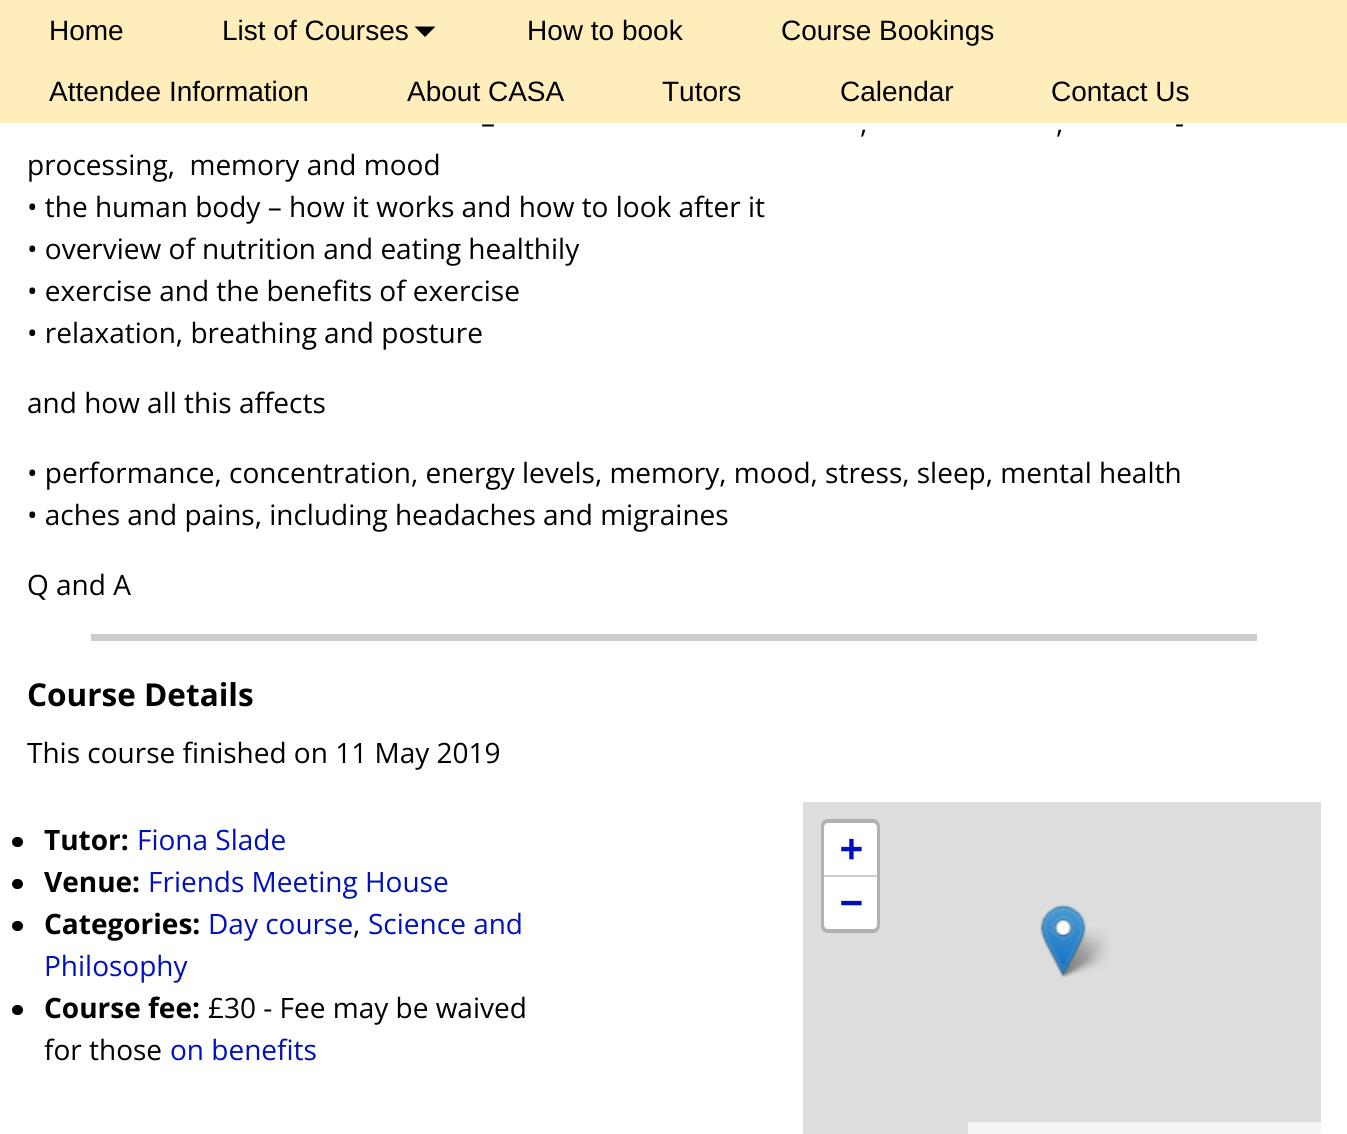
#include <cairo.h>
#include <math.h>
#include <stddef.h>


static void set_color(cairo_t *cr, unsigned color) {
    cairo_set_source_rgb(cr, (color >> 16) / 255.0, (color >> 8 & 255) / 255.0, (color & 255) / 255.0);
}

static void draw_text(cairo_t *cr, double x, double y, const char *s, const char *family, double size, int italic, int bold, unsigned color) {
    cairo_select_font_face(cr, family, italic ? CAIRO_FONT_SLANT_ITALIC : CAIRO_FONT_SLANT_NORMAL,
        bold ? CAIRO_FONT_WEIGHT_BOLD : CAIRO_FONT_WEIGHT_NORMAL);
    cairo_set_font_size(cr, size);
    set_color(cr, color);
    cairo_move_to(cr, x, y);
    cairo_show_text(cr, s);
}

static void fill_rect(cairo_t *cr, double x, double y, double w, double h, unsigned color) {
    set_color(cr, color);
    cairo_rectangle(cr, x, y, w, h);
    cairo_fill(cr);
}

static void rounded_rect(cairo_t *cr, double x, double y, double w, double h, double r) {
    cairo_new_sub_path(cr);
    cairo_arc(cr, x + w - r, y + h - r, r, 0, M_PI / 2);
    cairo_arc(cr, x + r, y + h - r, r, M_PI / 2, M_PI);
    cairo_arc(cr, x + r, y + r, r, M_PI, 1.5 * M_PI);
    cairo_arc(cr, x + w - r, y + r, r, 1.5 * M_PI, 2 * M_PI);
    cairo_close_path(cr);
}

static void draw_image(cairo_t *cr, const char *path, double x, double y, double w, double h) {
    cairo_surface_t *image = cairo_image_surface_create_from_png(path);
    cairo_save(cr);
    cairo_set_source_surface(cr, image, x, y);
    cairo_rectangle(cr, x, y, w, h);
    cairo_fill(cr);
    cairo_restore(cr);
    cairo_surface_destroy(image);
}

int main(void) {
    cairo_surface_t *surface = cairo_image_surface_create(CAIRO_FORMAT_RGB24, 1347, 1134);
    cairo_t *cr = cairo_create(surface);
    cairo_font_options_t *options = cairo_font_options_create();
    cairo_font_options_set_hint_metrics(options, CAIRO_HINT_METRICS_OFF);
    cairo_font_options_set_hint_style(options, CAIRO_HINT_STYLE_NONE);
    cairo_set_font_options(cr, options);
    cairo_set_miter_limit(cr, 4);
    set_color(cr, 0xFFFFFF);
    cairo_paint(cr);
    fill_rect(cr, 0, 0, 1347, 123, 0xFFEEBB);
    draw_text(cr, 49, 40, "Home", "Liberation Sans", 28, 0, 0, 0x000000);
    draw_text(cr, 222, 40, "List of Courses", "Liberation Sans", 28, 0, 0, 0x000000);
    cairo_new_path(cr);
    cairo_move_to(cr, 414.5, 26.5);
    cairo_line_to(cr, 435.5, 26.5);
    cairo_line_to(cr, 425, 37);
    cairo_close_path(cr);
    cairo_fill(cr);
    draw_text(cr, 527, 40, "How to book", "Liberation Sans", 28, 0, 0, 0x000000);
    draw_text(cr, 781, 40, "Course Bookings", "Liberation Sans", 28, 0, 0, 0x000000);
    draw_text(cr, 49, 101, "Attendee Information", "Liberation Sans", 28, 0, 0, 0x000000);
    draw_text(cr, 407, 101, "About CASA", "Liberation Sans", 28, 0, 0, 0x000000);
    draw_text(cr, 662, 101, "Tutors", "Liberation Sans", 28, 0, 0, 0x000000);
    draw_text(cr, 840, 101, "Calendar", "Liberation Sans", 28, 0, 0, 0x000000);
    draw_text(cr, 1051, 101, "Contact Us", "Liberation Sans", 28, 0, 0, 0x000000);
    draw_text(cr, 481, 133, "–", "Open Sans", 28, 0, 0, 0x000000);
    draw_text(cr, 1175, 133, "-", "Open Sans", 28, 0, 0, 0x000000);
    draw_text(cr, 860, 133, ",", "Open Sans", 28, 0, 0, 0x000000);
    draw_text(cr, 1056, 133, ",", "Open Sans", 28, 0, 0, 0x000000);
    draw_text(cr, 27, 175, "processing,  memory and mood", "Open Sans", 28, 0, 0, 0x000000);
    draw_text(cr, 27, 217, "• the human body – how it works and how to look after it", "Open Sans", 28, 0, 0, 0x000000);
    draw_text(cr, 27, 259, "• overview of nutrition and eating healthily", "Open Sans", 28, 0, 0, 0x000000);
    draw_text(cr, 27, 301, "• exercise and the benefits of exercise", "Open Sans", 28, 0, 0, 0x000000);
    draw_text(cr, 27, 343, "• relaxation, breathing and posture", "Open Sans", 28, 0, 0, 0x000000);
    draw_text(cr, 27, 413, "and how all this affects", "Open Sans", 28, 0, 0, 0x000000);
    draw_text(cr, 27, 483, "• performance, concentration, energy levels, memory, mood, stress, sleep, mental health", "Open Sans", 28, 0, 0, 0x000000);
    draw_text(cr, 27, 525, "• aches and pains, including headaches and migraines", "Open Sans", 28, 0, 0, 0x000000);
    draw_text(cr, 27, 595, "Q and A", "Open Sans", 28, 0, 0, 0x000000);
    fill_rect(cr, 91, 634, 1166, 7, 0xCCCCCC);
    draw_text(cr, 27, 706, "Course Details", "Open Sans", 31.5, 0, 1, 0x000000);
    draw_text(cr, 27, 763, "This course finished on 11 May 2019", "Open Sans", 28, 0, 0, 0x000000);
    rounded_rect(cr, 12, 837, 11, 10, 5);
    cairo_fill(cr);
    draw_text(cr, 44, 850, "Tutor:", "Open Sans", 28, 0, 1, 0x000000);
    draw_text(cr, 137, 850, "Fiona Slade", "Open Sans", 28, 0, 0, 0x0011BB);
    set_color(cr, 0x000000);
    rounded_rect(cr, 12, 879, 11, 10, 5);
    cairo_fill(cr);
    draw_text(cr, 44, 892, "Venue:", "Open Sans", 28, 0, 1, 0x000000);
    draw_text(cr, 148, 892, "Friends Meeting House", "Open Sans", 28, 0, 0, 0x0011BB);
    set_color(cr, 0x000000);
    rounded_rect(cr, 12, 921, 11, 10, 5);
    cairo_fill(cr);
    draw_text(cr, 44, 934, "Categories:", "Open Sans", 28, 0, 1, 0x000000);
    draw_text(cr, 208, 934, "Day course", "Open Sans", 28, 0, 0, 0x0011BB);
    draw_text(cr, 368, 934, "Science and", "Open Sans", 28, 0, 0, 0x0011BB);
    draw_text(cr, 353, 934, ",", "Open Sans", 28, 0, 0, 0x000000);
    draw_text(cr, 44, 976, "Philosophy", "Open Sans", 28, 0, 0, 0x0011BB);
    set_color(cr, 0x000000);
    rounded_rect(cr, 12, 1005, 11, 10, 5);
    cairo_fill(cr);
    draw_text(cr, 44, 1018, "Course fee:", "Open Sans", 28, 0, 1, 0x000000);
    draw_text(cr, 208, 1018, "£30 - Fee may be waived", "Open Sans", 28, 0, 0, 0x000000);
    draw_text(cr, 44, 1060, "for those", "Open Sans", 28, 0, 0, 0x000000);
    draw_text(cr, 170, 1060, "on benefits", "Open Sans", 28, 0, 0, 0x0011BB);
    fill_rect(cr, 803, 802, 518, 332, 0xDDDDDD);
    rounded_rect(cr, 823, 821, 55, 110, 5);
    set_color(cr, 0xB1B1B1);
    cairo_set_line_width(cr, 4);
    cairo_stroke(cr);
    set_color(cr, 0xFFFFFF);
    cairo_new_path(cr);
    cairo_move_to(cr, 828, 823);
    cairo_line_to(cr, 873, 823);
    cairo_curve_to(cr, 875, 823, 877, 825, 877, 827);
    cairo_line_to(cr, 877, 877);
    cairo_line_to(cr, 824, 877);
    cairo_line_to(cr, 824, 827);
    cairo_curve_to(cr, 824, 825, 826, 823, 828, 823);
    cairo_close_path(cr);
    cairo_fill(cr);
    fill_rect(cr, 824, 875, 53, 2, 0xCCCCCC);
    draw_text(cr, 840, 861, "+", "DejaVu Sans Mono", 38, 0, 1, 0x0011BB);
    set_color(cr, 0xFFFFFF);
    cairo_new_path(cr);
    cairo_move_to(cr, 824, 877);
    cairo_line_to(cr, 877, 877);
    cairo_line_to(cr, 877, 925);
    cairo_curve_to(cr, 877, 927, 875, 929, 873, 929);
    cairo_line_to(cr, 828, 929);
    cairo_curve_to(cr, 826, 929, 824, 927, 824, 925);
    cairo_close_path(cr);
    cairo_fill(cr);
    draw_text(cr, 840, 915, "−", "DejaVu Sans Mono", 38, 0, 1, 0x0011BB);
    fill_rect(cr, 968, 1122, 353, 12, 0xF5F5F5);
    draw_image(cr, "assets/img2.png", 1057, 927, 52, 50);
    draw_image(cr, "assets/img1.png", 1040, 904, 46, 73);
    cairo_surface_write_to_png(surface, "output.png");
    cairo_font_options_destroy(options);
    cairo_destroy(cr);
    cairo_surface_destroy(surface);
    return 0;
}
